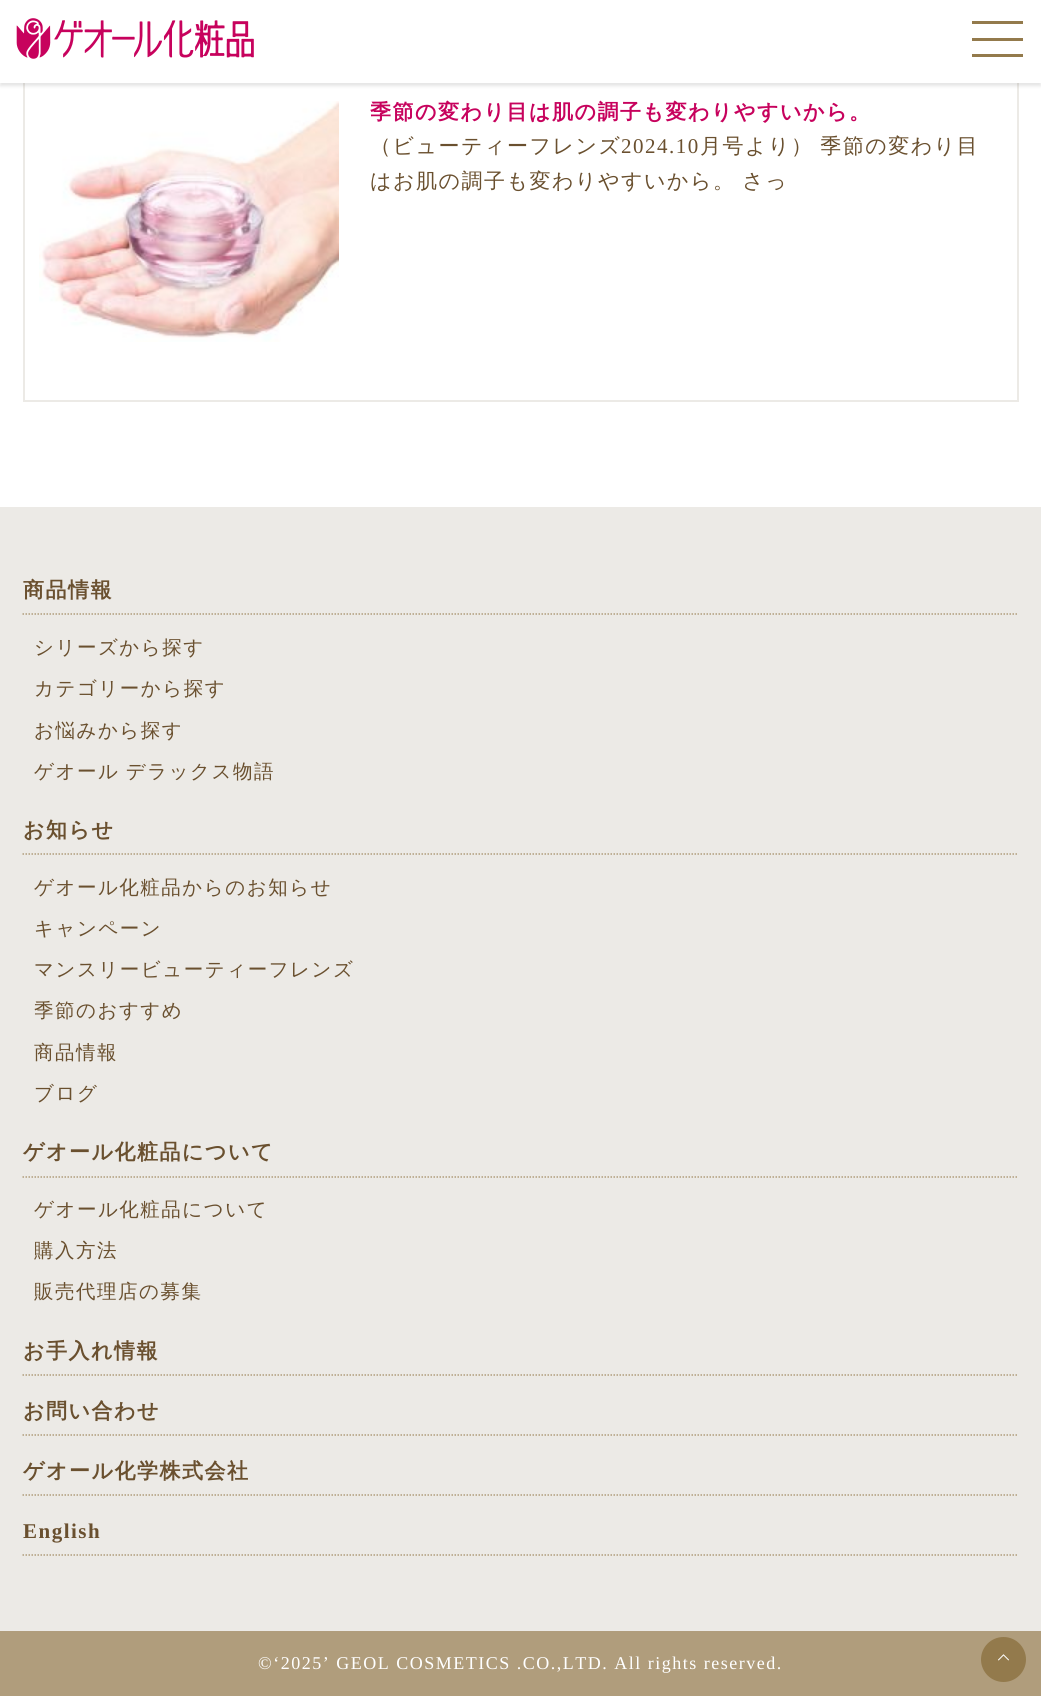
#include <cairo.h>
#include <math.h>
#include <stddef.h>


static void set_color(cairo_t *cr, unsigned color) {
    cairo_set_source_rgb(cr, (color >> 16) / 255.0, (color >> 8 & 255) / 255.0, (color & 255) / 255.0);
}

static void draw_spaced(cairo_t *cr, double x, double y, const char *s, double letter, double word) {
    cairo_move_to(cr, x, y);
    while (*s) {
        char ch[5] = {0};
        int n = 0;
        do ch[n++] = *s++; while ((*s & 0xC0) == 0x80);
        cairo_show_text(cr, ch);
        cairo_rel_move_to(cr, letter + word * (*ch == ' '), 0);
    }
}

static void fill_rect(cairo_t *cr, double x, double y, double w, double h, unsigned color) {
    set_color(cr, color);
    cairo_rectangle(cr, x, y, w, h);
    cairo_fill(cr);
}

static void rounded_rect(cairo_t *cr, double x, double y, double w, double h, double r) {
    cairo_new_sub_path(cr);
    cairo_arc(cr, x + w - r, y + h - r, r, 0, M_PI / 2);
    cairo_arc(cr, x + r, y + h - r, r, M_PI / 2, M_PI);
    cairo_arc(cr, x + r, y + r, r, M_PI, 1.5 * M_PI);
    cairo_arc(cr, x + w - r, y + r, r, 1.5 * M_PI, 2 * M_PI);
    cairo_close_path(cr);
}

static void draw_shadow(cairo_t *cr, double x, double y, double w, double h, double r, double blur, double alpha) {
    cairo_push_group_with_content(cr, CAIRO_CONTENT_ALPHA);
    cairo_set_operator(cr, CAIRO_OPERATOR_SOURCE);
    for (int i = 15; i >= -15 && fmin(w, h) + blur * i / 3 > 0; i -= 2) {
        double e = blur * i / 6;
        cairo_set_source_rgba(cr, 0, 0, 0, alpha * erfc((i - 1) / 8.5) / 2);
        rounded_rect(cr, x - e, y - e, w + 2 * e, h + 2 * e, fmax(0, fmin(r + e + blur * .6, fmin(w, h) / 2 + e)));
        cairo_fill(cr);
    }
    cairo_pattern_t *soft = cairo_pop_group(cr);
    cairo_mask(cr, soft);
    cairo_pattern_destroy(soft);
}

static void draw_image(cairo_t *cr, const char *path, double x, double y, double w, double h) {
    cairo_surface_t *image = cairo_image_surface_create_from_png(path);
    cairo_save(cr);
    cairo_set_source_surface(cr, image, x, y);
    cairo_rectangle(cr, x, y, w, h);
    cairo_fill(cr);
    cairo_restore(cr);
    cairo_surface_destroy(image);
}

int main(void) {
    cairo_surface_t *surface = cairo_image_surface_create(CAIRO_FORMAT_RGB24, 1041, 1696);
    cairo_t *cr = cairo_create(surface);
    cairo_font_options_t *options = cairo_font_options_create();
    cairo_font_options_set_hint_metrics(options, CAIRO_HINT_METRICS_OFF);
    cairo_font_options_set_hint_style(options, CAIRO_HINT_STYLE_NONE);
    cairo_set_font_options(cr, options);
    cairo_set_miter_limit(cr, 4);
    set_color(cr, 0xFFFFFF);
    cairo_paint(cr);
    cairo_rectangle(cr, 24, -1, 994, 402);
    set_color(cr, 0xECEAE6);
    cairo_stroke(cr);
    set_color(cr, 0x000000);
    draw_shadow(cr, 0, 3, 1041, 83, 0, 1.5, 0.1);
    fill_rect(cr, 0, 0, 1041, 83, 0xFFFFFF);
    draw_image(cr, "assets/img1.png", 16, 18, 238, 41);
    fill_rect(cr, 972, 21, 51, 3, 0x937A4C);
    fill_rect(cr, 972, 38, 51, 3, 0x937A4C);
    fill_rect(cr, 972, 54, 51, 3, 0x937A4C);
    draw_image(cr, "assets/img2.png", 39, 101, 300, 241);
    cairo_select_font_face(cr, "WenQuanYi Zen Hei", CAIRO_FONT_SLANT_NORMAL, CAIRO_FONT_WEIGHT_BOLD);
    cairo_set_font_size(cr, 21);
    set_color(cr, 0xC7025D);
    draw_spaced(cr, 370, 119, "季節の変わり目は肌の調子も変わりやすいから。", 1.5, 0);
    cairo_select_font_face(cr, "WenQuanYi Zen Hei Medium", CAIRO_FONT_SLANT_NORMAL, CAIRO_FONT_WEIGHT_NORMAL);
    set_color(cr, 0x6A502F);
    draw_spaced(cr, 370, 153, "（ビューティーフレンズ", 1.5, 0);
    cairo_select_font_face(cr, "Liberation Serif", CAIRO_FONT_SLANT_NORMAL, CAIRO_FONT_WEIGHT_NORMAL);
    draw_spaced(cr, 621, 153, "2024.10", 1.5, 0);
    cairo_select_font_face(cr, "WenQuanYi Zen Hei Medium", CAIRO_FONT_SLANT_NORMAL, CAIRO_FONT_WEIGHT_NORMAL);
    draw_spaced(cr, 700, 153, "月号より） 季節の変わり目", 1.5, -1);
    draw_spaced(cr, 370, 188, "はお肌の調子も変わりやすいから。 さっ", 1.5, -1);
    fill_rect(cr, 0, 507, 1041, 1124, 0xECEAE6);
    cairo_new_path(cr);
    cairo_move_to(cr, 22.5, 614);
    cairo_line_to(cr, 1018.5, 614);
    set_color(cr, 0xB09D7C);
    cairo_set_line_width(cr, 1.5);
    cairo_set_dash(cr, (double[]){1.5, 1.5}, 2, 0);
    cairo_stroke(cr);
    cairo_select_font_face(cr, "WenQuanYi Zen Hei", CAIRO_FONT_SLANT_NORMAL, CAIRO_FONT_WEIGHT_BOLD);
    set_color(cr, 0x6A502F);
    draw_spaced(cr, 23, 597, "商品情報", 1.5, 0);
    cairo_select_font_face(cr, "WenQuanYi Zen Hei Medium", CAIRO_FONT_SLANT_NORMAL, CAIRO_FONT_WEIGHT_NORMAL);
    cairo_set_font_size(cr, 19.5);
    draw_spaced(cr, 34, 654, "シリーズから探す", 1.5, 0);
    draw_spaced(cr, 34, 695, "カテゴリーから探す", 1.5, 0);
    draw_spaced(cr, 34, 737, "お悩みから探す", 1.5, 0);
    draw_spaced(cr, 34, 778, "ゲオール デラックス物語", 1.5, -1);
    cairo_new_path(cr);
    cairo_move_to(cr, 22.5, 854);
    cairo_line_to(cr, 1018.5, 854);
    set_color(cr, 0xB09D7C);
    cairo_stroke(cr);
    cairo_select_font_face(cr, "WenQuanYi Zen Hei", CAIRO_FONT_SLANT_NORMAL, CAIRO_FONT_WEIGHT_BOLD);
    cairo_set_font_size(cr, 21);
    set_color(cr, 0x6A502F);
    draw_spaced(cr, 23, 837, "お知らせ", 1.5, 0);
    cairo_select_font_face(cr, "WenQuanYi Zen Hei Medium", CAIRO_FONT_SLANT_NORMAL, CAIRO_FONT_WEIGHT_NORMAL);
    cairo_set_font_size(cr, 19.5);
    draw_spaced(cr, 34, 894, "ゲオール化粧品からのお知らせ", 1.5, 0);
    draw_spaced(cr, 34, 935, "キャンペーン", 1.5, 0);
    draw_spaced(cr, 34, 976, "マンスリービューティーフレンズ", 1.5, 0);
    draw_spaced(cr, 34, 1017, "季節のおすすめ", 1.5, 0);
    draw_spaced(cr, 34, 1059, "商品情報", 1.5, 0);
    draw_spaced(cr, 34, 1100, "ブログ", 1.5, 0);
    cairo_new_path(cr);
    cairo_move_to(cr, 22.5, 1177);
    cairo_line_to(cr, 1018.5, 1177);
    set_color(cr, 0xB09D7C);
    cairo_stroke(cr);
    cairo_select_font_face(cr, "WenQuanYi Zen Hei", CAIRO_FONT_SLANT_NORMAL, CAIRO_FONT_WEIGHT_BOLD);
    cairo_set_font_size(cr, 21);
    set_color(cr, 0x6A502F);
    draw_spaced(cr, 23, 1159, "ゲオール化粧品について", 1.5, 0);
    cairo_select_font_face(cr, "WenQuanYi Zen Hei Medium", CAIRO_FONT_SLANT_NORMAL, CAIRO_FONT_WEIGHT_NORMAL);
    cairo_set_font_size(cr, 19.5);
    draw_spaced(cr, 34, 1216, "ゲオール化粧品について", 1.5, 0);
    draw_spaced(cr, 34, 1257, "購入方法", 1.5, 0);
    draw_spaced(cr, 34, 1298, "販売代理店の募集", 1.5, 0);
    cairo_new_path(cr);
    cairo_move_to(cr, 22.5, 1375);
    cairo_line_to(cr, 1018.5, 1375);
    set_color(cr, 0xB09D7C);
    cairo_stroke(cr);
    cairo_select_font_face(cr, "WenQuanYi Zen Hei", CAIRO_FONT_SLANT_NORMAL, CAIRO_FONT_WEIGHT_BOLD);
    cairo_set_font_size(cr, 21);
    set_color(cr, 0x6A502F);
    draw_spaced(cr, 23, 1358, "お手入れ情報", 1.5, 0);
    cairo_new_path(cr);
    cairo_move_to(cr, 22.5, 1435);
    cairo_line_to(cr, 1018.5, 1435);
    set_color(cr, 0xB09D7C);
    cairo_stroke(cr);
    set_color(cr, 0x6A502F);
    draw_spaced(cr, 23, 1418, "お問い合わせ", 1.5, 0);
    cairo_new_path(cr);
    cairo_move_to(cr, 22.5, 1495);
    cairo_line_to(cr, 1018.5, 1495);
    set_color(cr, 0xB09D7C);
    cairo_stroke(cr);
    set_color(cr, 0x6A502F);
    draw_spaced(cr, 23, 1478, "ゲオール化学株式会社", 1.5, 0);
    cairo_new_path(cr);
    cairo_move_to(cr, 22.5, 1555);
    cairo_line_to(cr, 1018.5, 1555);
    set_color(cr, 0xB09D7C);
    cairo_stroke(cr);
    cairo_select_font_face(cr, "Liberation Serif", CAIRO_FONT_SLANT_NORMAL, CAIRO_FONT_WEIGHT_BOLD);
    set_color(cr, 0x6A502F);
    draw_spaced(cr, 23, 1538, "English", 1.5, 0);
    fill_rect(cr, 0, 1631, 1041, 65, 0xB09D7C);
    cairo_select_font_face(cr, "Liberation Serif", CAIRO_FONT_SLANT_NORMAL, CAIRO_FONT_WEIGHT_NORMAL);
    cairo_set_font_size(cr, 18);
    set_color(cr, 0xFFFFFF);
    draw_spaced(cr, 258, 1669, "©‘2025’ GEOL COSMETICS .CO.,LTD. All rights reserved.", 1.5, 0);
    set_color(cr, 0x937A4C);
    cairo_new_path(cr);
    cairo_arc(cr, 1003.5, 1659.5, 22.5, 0, 2 * M_PI);
    cairo_fill(cr);
    draw_image(cr, "assets/img3.png", 998, 1654, 11, 7);
    cairo_surface_write_to_png(surface, "output.png");
    cairo_font_options_destroy(options);
    cairo_destroy(cr);
    cairo_surface_destroy(surface);
    return 0;
}
